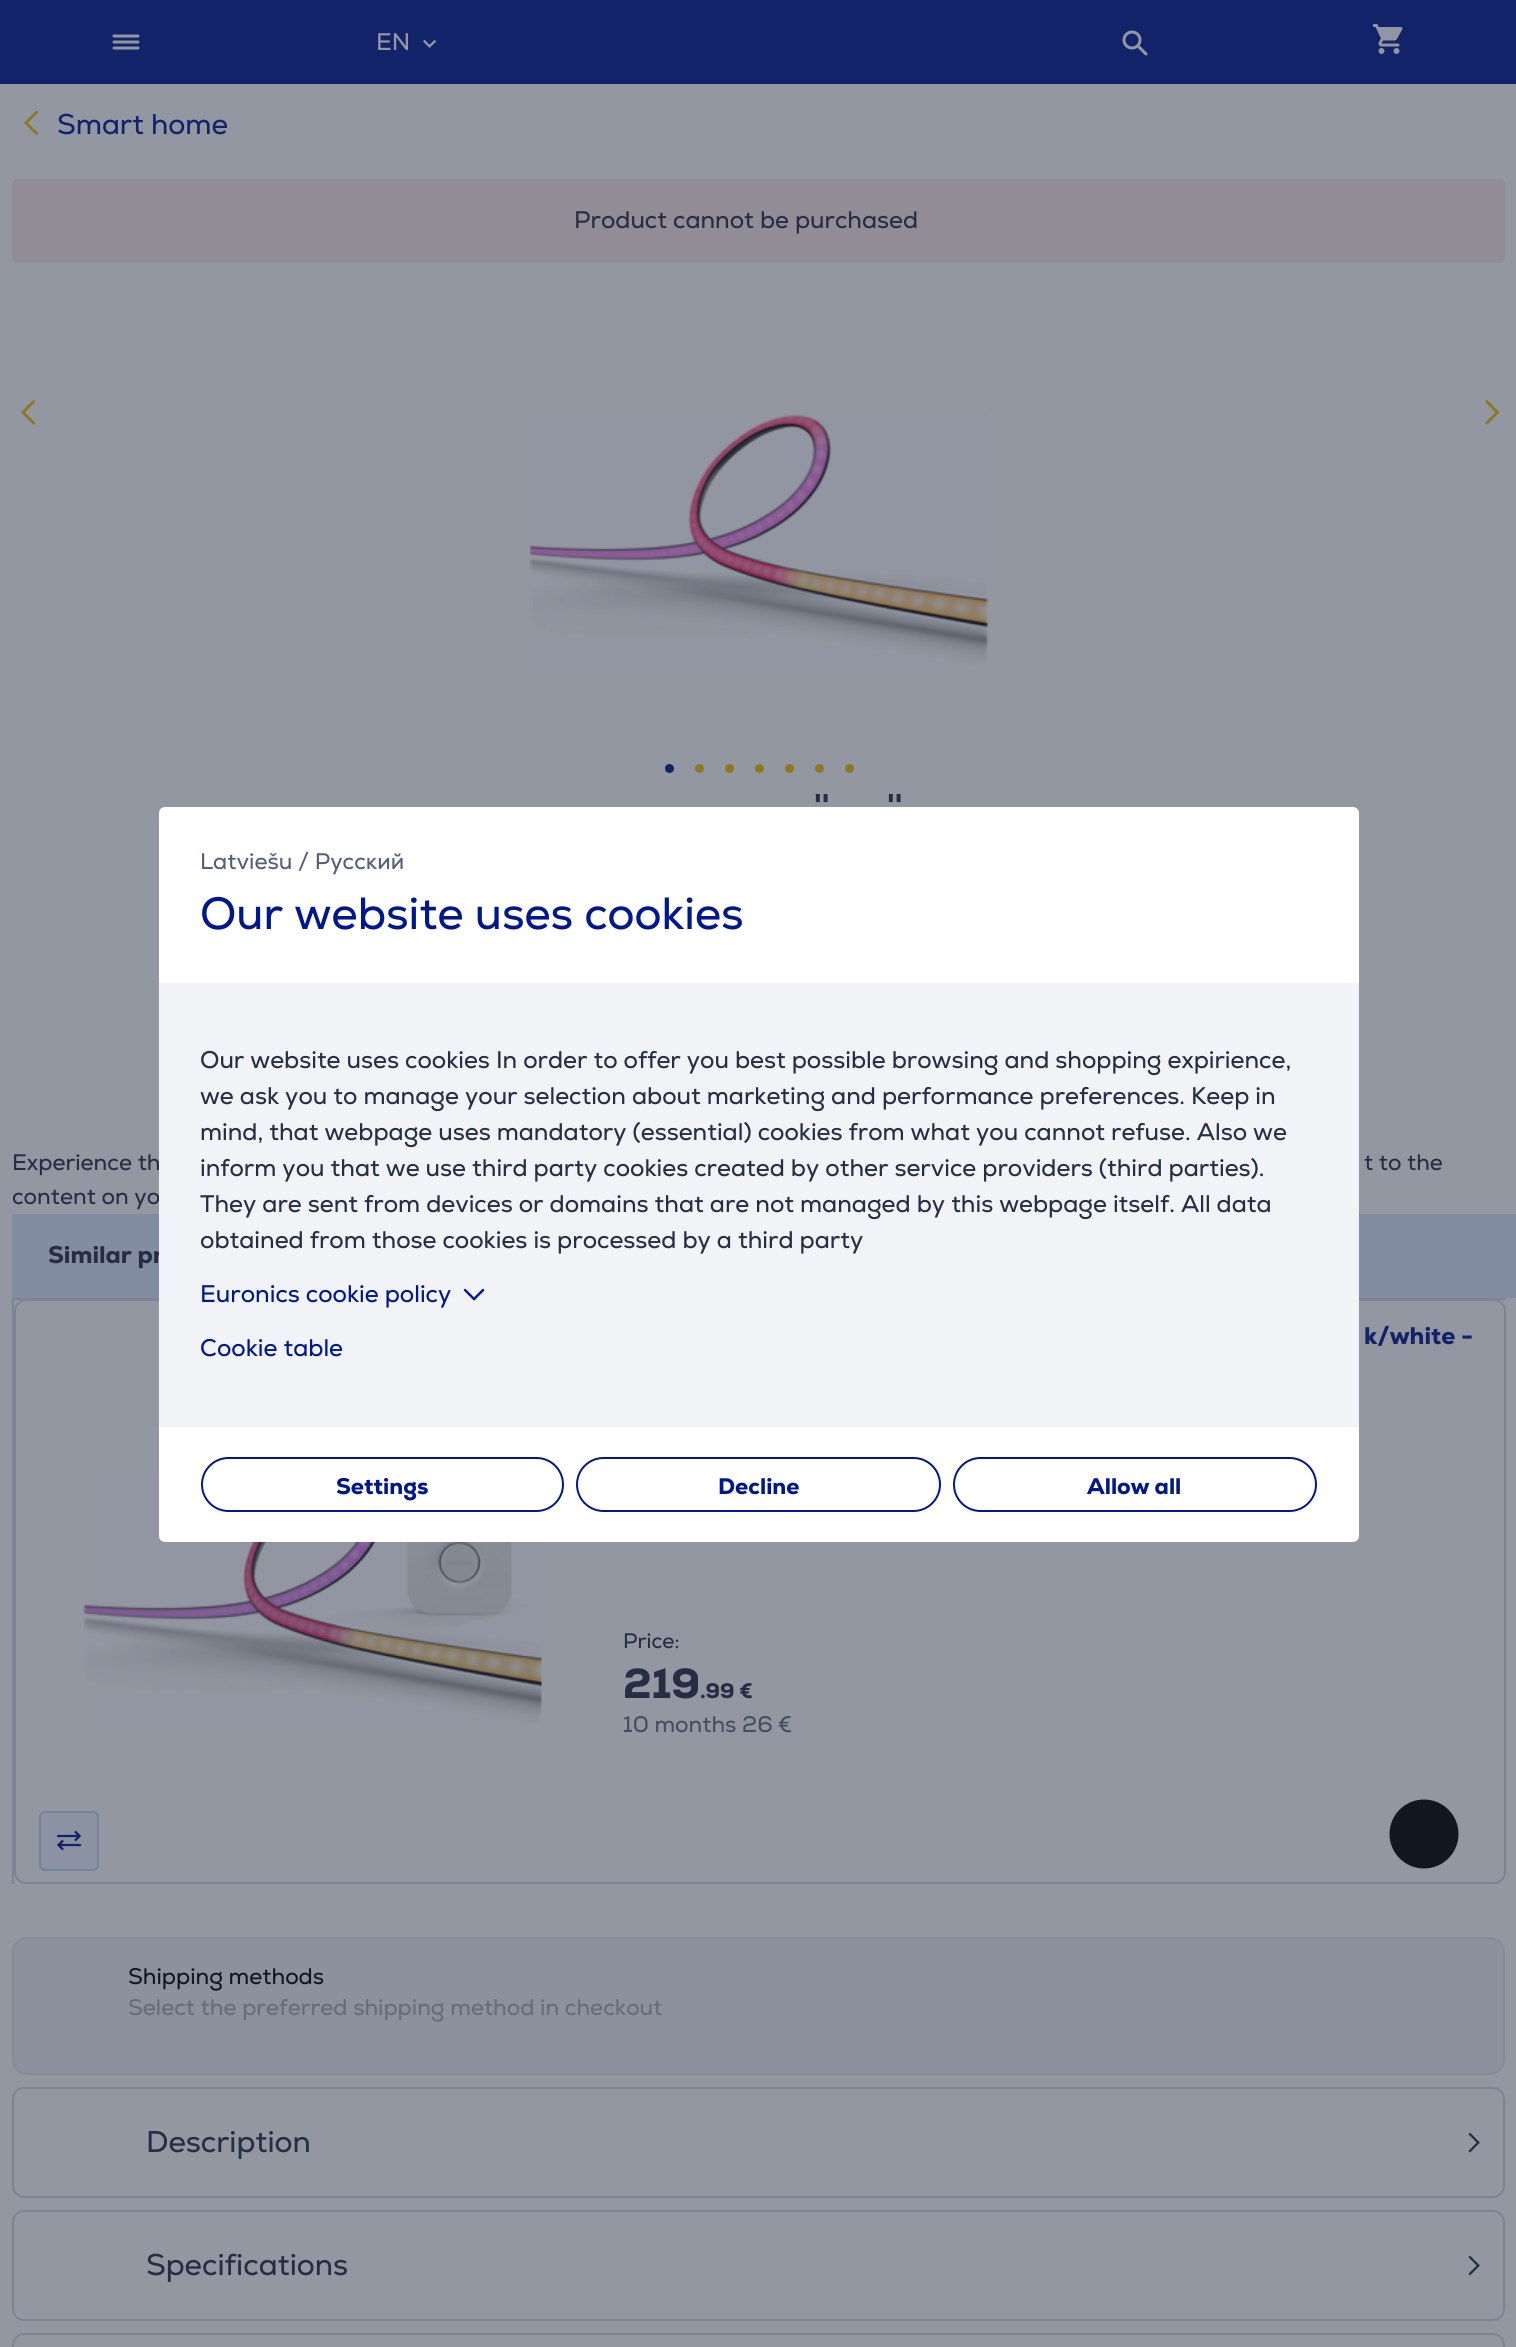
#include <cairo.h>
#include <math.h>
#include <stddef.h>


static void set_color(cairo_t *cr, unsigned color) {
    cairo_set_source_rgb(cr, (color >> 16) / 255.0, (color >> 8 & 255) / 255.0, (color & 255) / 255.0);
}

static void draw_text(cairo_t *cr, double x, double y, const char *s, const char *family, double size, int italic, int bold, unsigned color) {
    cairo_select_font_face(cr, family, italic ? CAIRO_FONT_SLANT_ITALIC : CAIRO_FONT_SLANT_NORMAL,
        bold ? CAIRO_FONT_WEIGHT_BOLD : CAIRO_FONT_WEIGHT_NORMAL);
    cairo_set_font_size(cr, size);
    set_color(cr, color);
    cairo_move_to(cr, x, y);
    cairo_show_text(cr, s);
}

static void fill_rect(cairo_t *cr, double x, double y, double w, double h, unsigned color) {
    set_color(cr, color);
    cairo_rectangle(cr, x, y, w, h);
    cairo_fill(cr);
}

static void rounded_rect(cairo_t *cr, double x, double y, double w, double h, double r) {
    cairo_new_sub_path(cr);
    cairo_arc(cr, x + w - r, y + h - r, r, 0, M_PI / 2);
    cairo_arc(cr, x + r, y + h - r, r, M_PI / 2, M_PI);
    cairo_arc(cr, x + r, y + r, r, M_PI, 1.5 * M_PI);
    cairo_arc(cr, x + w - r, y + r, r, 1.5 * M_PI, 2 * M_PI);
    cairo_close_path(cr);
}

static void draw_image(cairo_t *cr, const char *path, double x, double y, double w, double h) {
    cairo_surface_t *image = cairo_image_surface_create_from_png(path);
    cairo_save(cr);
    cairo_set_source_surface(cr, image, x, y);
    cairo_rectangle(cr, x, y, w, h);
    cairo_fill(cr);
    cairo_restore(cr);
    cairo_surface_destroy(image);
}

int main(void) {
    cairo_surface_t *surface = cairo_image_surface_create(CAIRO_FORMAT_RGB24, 1516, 2347);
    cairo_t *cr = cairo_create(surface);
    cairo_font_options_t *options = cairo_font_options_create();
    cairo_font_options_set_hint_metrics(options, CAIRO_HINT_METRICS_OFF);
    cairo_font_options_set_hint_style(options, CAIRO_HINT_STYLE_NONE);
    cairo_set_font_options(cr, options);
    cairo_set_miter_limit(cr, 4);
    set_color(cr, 0x9397A2);
    cairo_paint(cr);
    fill_rect(cr, 0, 0, 1516, 84, 0x13236A);
    cairo_new_path(cr);
    cairo_move_to(cr, 114, 36);
    cairo_line_to(cr, 138, 36);
    cairo_move_to(cr, 114, 42);
    cairo_line_to(cr, 138, 42);
    cairo_move_to(cr, 114, 48);
    cairo_line_to(cr, 138, 48);
    set_color(cr, 0x9397A2);
    cairo_set_line_width(cr, 3);
    cairo_set_line_cap(cr, CAIRO_LINE_CAP_ROUND);
    cairo_stroke(cr);
    draw_text(cr, 376, 50, "EN", "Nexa", 24, 0, 0, 0x9397A2);
    draw_image(cr, "assets/img1.png", 423, 40, 13, 8);
    cairo_arc(cr, 1132, 40, 8, 0, 2 * M_PI);
    cairo_set_line_cap(cr, CAIRO_LINE_CAP_BUTT);
    cairo_stroke(cr);
    cairo_new_path(cr);
    cairo_move_to(cr, 1138, 46);
    cairo_line_to(cr, 1146, 54);
    cairo_set_line_cap(cr, CAIRO_LINE_CAP_ROUND);
    cairo_stroke(cr);
    draw_image(cr, "assets/img2.png", 1373, 24, 30, 30);
    draw_image(cr, "assets/img3.png", 24, 110, 15, 26);
    draw_text(cr, 57, 134, "Smart home", "Nexa", 28.5, 0, 0, 0x13236A);
    set_color(cr, 0x918C95);
    rounded_rect(cr, 12, 179, 1493, 84, 5);
    cairo_fill(cr);
    draw_text(cr, 574, 228, "Product cannot be purchased", "Nexa", 24, 0, 0, 0x262E44);
    draw_image(cr, "assets/img4.png", 21, 400, 15, 25);
    draw_image(cr, "assets/img5.png", 1485, 400, 15, 25);
    draw_image(cr, "assets/img6.png", 530, 413, 458, 252);
    set_color(cr, 0x13236A);
    cairo_arc(cr, 669.5, 768.5, 3.5, 0, 2 * M_PI);
    cairo_fill_preserve(cr);
    cairo_set_line_width(cr, 2);
    cairo_set_line_cap(cr, CAIRO_LINE_CAP_BUTT);
    cairo_stroke(cr);
    set_color(cr, 0x8C7922);
    cairo_arc(cr, 699.5, 768.5, 3.5, 0, 2 * M_PI);
    cairo_fill_preserve(cr);
    cairo_stroke(cr);
    cairo_arc(cr, 729.5, 768.5, 3.5, 0, 2 * M_PI);
    cairo_fill_preserve(cr);
    cairo_stroke(cr);
    cairo_arc(cr, 759.5, 768.5, 3.5, 0, 2 * M_PI);
    cairo_fill_preserve(cr);
    cairo_stroke(cr);
    cairo_arc(cr, 789.5, 768.5, 3.5, 0, 2 * M_PI);
    cairo_fill_preserve(cr);
    cairo_stroke(cr);
    cairo_arc(cr, 819.5, 768.5, 3.5, 0, 2 * M_PI);
    cairo_fill_preserve(cr);
    cairo_stroke(cr);
    cairo_arc(cr, 849.5, 768.5, 3.5, 0, 2 * M_PI);
    cairo_fill_preserve(cr);
    cairo_stroke(cr);
    draw_text(cr, 814, 815, "''", "Nexa Black", 30, 0, 0, 0x262E44);
    draw_text(cr, 887, 815, "''", "Nexa Black", 30, 0, 0, 0x262E44);
    draw_text(cr, 12, 1170, "Experience th", "Nexa", 22.5, 0, 0, 0x262E44);
    draw_text(cr, 1364, 1170, "t to the", "Nexa", 22.5, 0, 0, 0x262E44);
    draw_text(cr, 12, 1204, "content on yo", "Nexa", 22.5, 0, 0, 0x262E44);
    fill_rect(cr, 12, 1214, 1504, 84, 0x838DA2);
    draw_text(cr, 48, 1263, "Similar pr", "Nexa Black", 24, 0, 0, 0x262E44);
    fill_rect(cr, 12, 1298, 1494, 2, 0x7E8393);
    fill_rect(cr, 12, 1298, 2, 586, 0x7E8393);
    set_color(cr, 0x9397A2);
    rounded_rect(cr, 15, 1300, 1490, 583, 11);
    cairo_fill_preserve(cr);
    set_color(cr, 0x7E8393);
    cairo_stroke(cr);
    draw_text(cr, 1364, 1344, "k/white -", "Nexa Black", 24, 0, 0, 0x13236A);
    draw_image(cr, "assets/img7.png", 84, 1474, 458, 249);
    draw_text(cr, 623, 1648, "Price:", "Nexa", 21, 0, 0, 0x262E44);
    draw_text(cr, 623, 1698, "219", "Nexa Black", 42, 0, 0, 0x262E44);
    draw_text(cr, 700, 1698, ".99 €", "Nexa Black", 21, 0, 0, 0x262E44);
    draw_text(cr, 623, 1732, "10 months 26 €", "Nexa", 22.5, 0, 0, 0x454D61);
    set_color(cr, 0x8B93A2);
    rounded_rect(cr, 40, 1812, 58, 58, 5);
    cairo_fill_preserve(cr);
    set_color(cr, 0x72839D);
    cairo_stroke(cr);
    draw_image(cr, "assets/img8.png", 57, 1830, 25, 21);
    set_color(cr, 0x131722);
    cairo_arc(cr, 1424, 1834, 34.5, 0, 2 * M_PI);
    cairo_fill(cr);
    set_color(cr, 0x8C919D);
    rounded_rect(cr, 13, 1938, 1491, 136, 14);
    cairo_fill_preserve(cr);
    set_color(cr, 0x858A98);
    cairo_stroke(cr);
    draw_text(cr, 128, 1984, "Shipping methods", "Nexa", 22.5, 0, 0, 0x131722);
    draw_text(cr, 128, 2015, "Select the preferred shipping method in checkout", "Nexa", 22.5, 0, 0, 0x686C77);
    rounded_rect(cr, 13, 2088, 1491, 109, 11);
    set_color(cr, 0x7E8393);
    cairo_stroke(cr);
    draw_text(cr, 146, 2152, "Description", "Nexa", 30, 0, 0, 0x262E44);
    draw_image(cr, "assets/img9.png", 1468, 2132, 12, 21);
    rounded_rect(cr, 13, 2211, 1491, 109, 11);
    set_color(cr, 0x7E8393);
    cairo_stroke(cr);
    draw_text(cr, 146, 2275, "Specifications", "Nexa", 30, 0, 0, 0x262E44);
    draw_image(cr, "assets/img9.png", 1468, 2255, 12, 21);
    rounded_rect(cr, 13, 2334, 1491, 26, 11);
    set_color(cr, 0x7E8393);
    cairo_stroke(cr);
    set_color(cr, 0xFFFFFF);
    rounded_rect(cr, 159, 807, 1200, 735, 6);
    cairo_fill(cr);
    draw_text(cr, 200, 869, "Latviešu / Русский", "Nexa", 22.5, 0, 0, 0x555E7A);
    draw_text(cr, 200, 929, "Our website uses cookies", "Nexa", 45, 0, 0, 0x00178F);
    fill_rect(cr, 159, 983, 1200, 444, 0xF1F3F6);
    draw_text(cr, 200, 1068, "Our website uses cookies In order to offer you best possible browsing and shopping expirience,", "Nexa", 24, 0, 0, 0x262E44);
    draw_text(cr, 200, 1104, "we ask you to manage your selection about marketing and performance preferences. Keep in", "Nexa", 24, 0, 0, 0x262E44);
    draw_text(cr, 200, 1140, "mind, that webpage uses mandatory (essential) cookies from what you cannot refuse. Also we", "Nexa", 24, 0, 0, 0x262E44);
    draw_text(cr, 200, 1176, "inform you that we use third party cookies created by other service providers (third parties).", "Nexa", 24, 0, 0, 0x262E44);
    draw_text(cr, 200, 1212, "They are sent from devices or domains that are not managed by this webpage itself. All data", "Nexa", 24, 0, 0, 0x262E44);
    draw_text(cr, 200, 1248, "obtained from those cookies is processed by a third party", "Nexa", 24, 0, 0, 0x262E44);
    draw_text(cr, 200, 1302, "Euronics cookie policy", "Nexa", 24, 0, 0, 0x00178F);
    draw_image(cr, "assets/img10.png", 463, 1288, 22, 13);
    draw_text(cr, 200, 1356, "Cookie table", "Nexa", 24, 0, 0, 0x00178F);
    rounded_rect(cr, 202, 1458, 361, 53, 26.5);
    cairo_stroke(cr);
    draw_text(cr, 336, 1494, "Settings", "Nexa Black", 22.5, 0, 0, 0x00178F);
    rounded_rect(cr, 577, 1458, 363, 53, 26.5);
    cairo_stroke(cr);
    draw_text(cr, 718, 1494, "Decline", "Nexa Black", 22.5, 0, 0, 0x00178F);
    rounded_rect(cr, 954, 1458, 362, 53, 26.5);
    cairo_stroke(cr);
    draw_text(cr, 1087, 1494, "Allow all", "Nexa Black", 22.5, 0, 0, 0x00178F);
    cairo_surface_write_to_png(surface, "output.png");
    cairo_font_options_destroy(options);
    cairo_destroy(cr);
    cairo_surface_destroy(surface);
    return 0;
}
